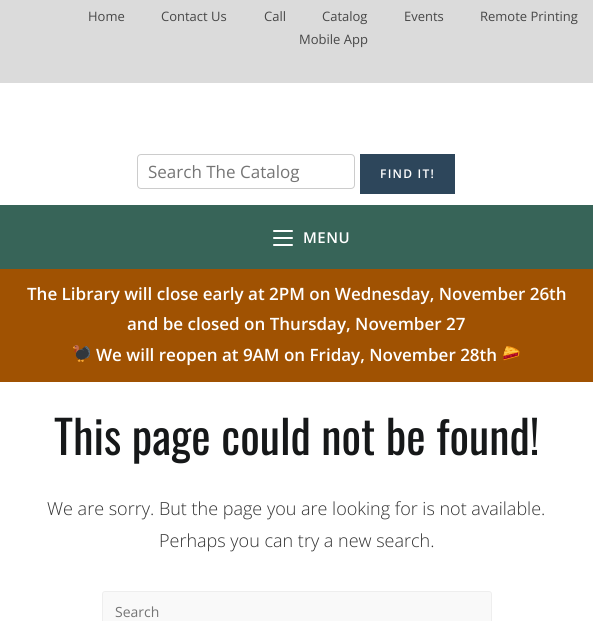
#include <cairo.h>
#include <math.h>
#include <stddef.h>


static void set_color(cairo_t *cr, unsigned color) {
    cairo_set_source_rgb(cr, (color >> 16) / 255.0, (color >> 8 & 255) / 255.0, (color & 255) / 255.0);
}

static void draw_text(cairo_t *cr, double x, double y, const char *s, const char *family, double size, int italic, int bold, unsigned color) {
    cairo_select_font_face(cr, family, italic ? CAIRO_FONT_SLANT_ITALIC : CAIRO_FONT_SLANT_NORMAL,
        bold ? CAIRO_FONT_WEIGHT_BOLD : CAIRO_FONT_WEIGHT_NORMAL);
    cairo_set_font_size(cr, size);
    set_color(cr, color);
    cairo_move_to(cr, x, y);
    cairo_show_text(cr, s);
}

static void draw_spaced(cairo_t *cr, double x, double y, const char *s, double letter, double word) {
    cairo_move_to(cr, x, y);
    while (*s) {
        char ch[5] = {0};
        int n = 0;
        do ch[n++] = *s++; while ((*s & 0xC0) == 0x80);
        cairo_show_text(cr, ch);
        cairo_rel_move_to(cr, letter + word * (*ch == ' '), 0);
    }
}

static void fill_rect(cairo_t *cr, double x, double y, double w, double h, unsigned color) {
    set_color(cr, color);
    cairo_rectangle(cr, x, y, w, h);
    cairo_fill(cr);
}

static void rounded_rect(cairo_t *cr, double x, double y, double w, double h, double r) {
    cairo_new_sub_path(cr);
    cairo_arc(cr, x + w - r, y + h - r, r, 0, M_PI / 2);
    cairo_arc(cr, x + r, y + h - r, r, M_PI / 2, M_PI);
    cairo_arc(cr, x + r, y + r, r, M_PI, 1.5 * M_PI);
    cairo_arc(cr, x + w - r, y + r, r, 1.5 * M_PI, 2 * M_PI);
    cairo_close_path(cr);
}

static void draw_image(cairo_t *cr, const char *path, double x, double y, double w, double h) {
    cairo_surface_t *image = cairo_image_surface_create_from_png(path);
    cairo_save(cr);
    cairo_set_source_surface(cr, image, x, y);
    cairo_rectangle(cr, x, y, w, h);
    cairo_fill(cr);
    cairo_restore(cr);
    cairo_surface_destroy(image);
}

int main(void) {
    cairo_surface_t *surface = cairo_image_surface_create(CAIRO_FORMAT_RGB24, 593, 621);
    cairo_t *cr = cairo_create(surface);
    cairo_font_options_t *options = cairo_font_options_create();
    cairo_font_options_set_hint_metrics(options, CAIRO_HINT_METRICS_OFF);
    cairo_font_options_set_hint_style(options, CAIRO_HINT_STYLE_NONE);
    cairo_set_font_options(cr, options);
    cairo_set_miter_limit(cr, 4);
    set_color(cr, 0xFFFFFF);
    cairo_paint(cr);
    fill_rect(cr, 0, 0, 593, 83, 0xDBDBDB);
    draw_text(cr, 88, 21, "Home", "Open Sans", 13, 0, 0, 0x474747);
    draw_text(cr, 161, 21, "Contact Us", "Open Sans", 13, 0, 0, 0x474747);
    draw_text(cr, 264, 21, "Call", "Open Sans", 13, 0, 0, 0x474747);
    draw_text(cr, 322, 21, "Catalog", "Open Sans", 13, 0, 0, 0x474747);
    draw_text(cr, 404, 21, "Events", "Open Sans", 13, 0, 0, 0x474747);
    draw_text(cr, 480, 21, "Remote Printing", "Open Sans", 13, 0, 0, 0x474747);
    draw_text(cr, 299, 44, "Mobile App", "Open Sans", 13, 0, 0, 0x474747);
    rounded_rect(cr, 137.5, 154.5, 217, 34, 3.5);
    set_color(cr, 0xCCCCCC);
    cairo_set_line_width(cr, 1);
    cairo_stroke(cr);
    draw_text(cr, 148, 178, "Search The Catalog", "Open Sans", 17, 0, 0, 0x757575);
    fill_rect(cr, 360, 154, 95, 40, 0x2D465B);
    cairo_select_font_face(cr, "Open Sans SemiBold", CAIRO_FONT_SLANT_NORMAL, CAIRO_FONT_WEIGHT_NORMAL);
    cairo_set_font_size(cr, 12);
    set_color(cr, 0xFFFFFF);
    draw_spaced(cr, 380, 178, "FIND IT!", 1.25, 0);
    fill_rect(cr, 0, 205, 593, 64, 0x376458);
    set_color(cr, 0xFFFFFF);
    rounded_rect(cr, 273, 237, 20, 2, 1);
    cairo_fill(cr);
    rounded_rect(cr, 273, 230, 20, 2, 1);
    cairo_fill(cr);
    rounded_rect(cr, 273, 244, 20, 2, 1);
    cairo_fill(cr);
    cairo_set_font_size(cr, 15);
    draw_spaced(cr, 303, 243, "MENU", 0.5, 0);
    fill_rect(cr, 0, 269, 593, 113, 0xA05202);
    draw_text(cr, 27, 300, "The Library will close early at 2PM on Wednesday, November 26th", "Open Sans SemiBold", 17, 0, 0, 0xFFFFFF);
    draw_text(cr, 127, 330, "and be closed on Thursday, November 27", "Open Sans SemiBold", 17, 0, 0, 0xFFFFFF);
    draw_image(cr, "assets/img1.png", 73, 345, 17, 17);
    draw_text(cr, 96, 361, "We will reopen at 9AM on Friday, November 28th", "Open Sans SemiBold", 17, 0, 0, 0xFFFFFF);
    draw_image(cr, "assets/img2.png", 503, 346, 17, 15);
    draw_text(cr, 54, 455, "This page could not be found!", "Oswald", 46, 0, 0, 0x161819);
    draw_text(cr, 47, 515, "We are sorry. But the page you are looking for is not available.", "Open Sans Light", 18, 0, 0, 0x333333);
    draw_text(cr, 159, 547, "Perhaps you can try a new search.", "Open Sans Light", 18, 0, 0, 0x333333);
    set_color(cr, 0xF9F9F9);
    rounded_rect(cr, 102.5, 591.5, 389, 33, 2.5);
    cairo_fill_preserve(cr);
    set_color(cr, 0xEEEEEE);
    cairo_stroke(cr);
    draw_text(cr, 115, 617, "Search", "Open Sans", 14, 0, 0, 0x757575);
    cairo_surface_write_to_png(surface, "output.png");
    cairo_font_options_destroy(options);
    cairo_destroy(cr);
    cairo_surface_destroy(surface);
    return 0;
}
